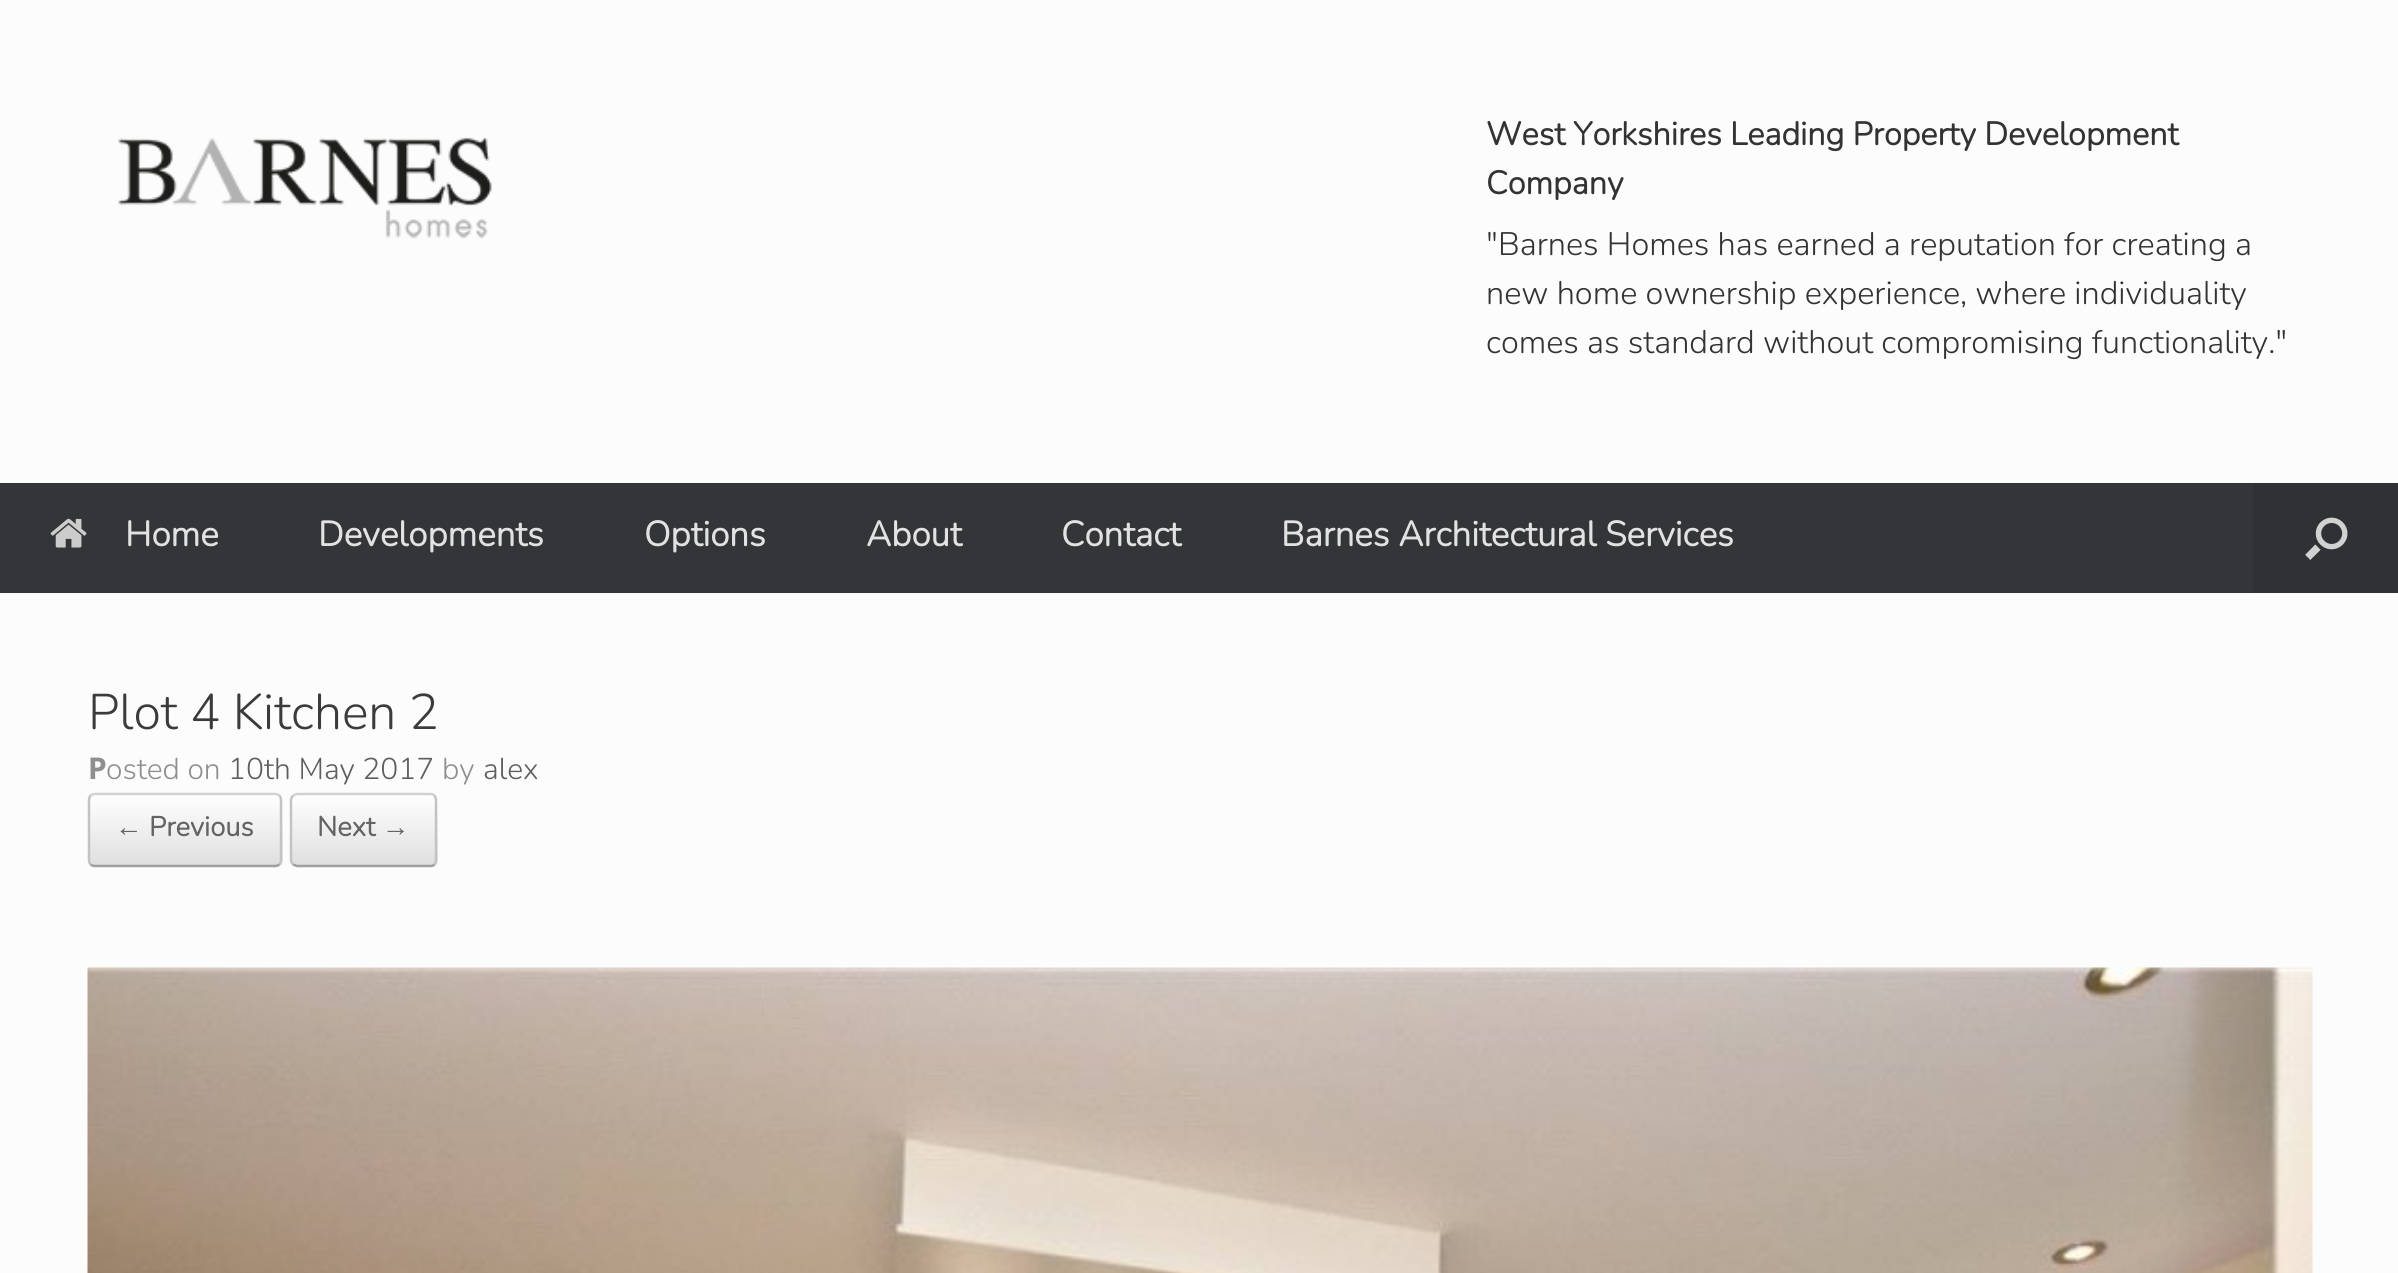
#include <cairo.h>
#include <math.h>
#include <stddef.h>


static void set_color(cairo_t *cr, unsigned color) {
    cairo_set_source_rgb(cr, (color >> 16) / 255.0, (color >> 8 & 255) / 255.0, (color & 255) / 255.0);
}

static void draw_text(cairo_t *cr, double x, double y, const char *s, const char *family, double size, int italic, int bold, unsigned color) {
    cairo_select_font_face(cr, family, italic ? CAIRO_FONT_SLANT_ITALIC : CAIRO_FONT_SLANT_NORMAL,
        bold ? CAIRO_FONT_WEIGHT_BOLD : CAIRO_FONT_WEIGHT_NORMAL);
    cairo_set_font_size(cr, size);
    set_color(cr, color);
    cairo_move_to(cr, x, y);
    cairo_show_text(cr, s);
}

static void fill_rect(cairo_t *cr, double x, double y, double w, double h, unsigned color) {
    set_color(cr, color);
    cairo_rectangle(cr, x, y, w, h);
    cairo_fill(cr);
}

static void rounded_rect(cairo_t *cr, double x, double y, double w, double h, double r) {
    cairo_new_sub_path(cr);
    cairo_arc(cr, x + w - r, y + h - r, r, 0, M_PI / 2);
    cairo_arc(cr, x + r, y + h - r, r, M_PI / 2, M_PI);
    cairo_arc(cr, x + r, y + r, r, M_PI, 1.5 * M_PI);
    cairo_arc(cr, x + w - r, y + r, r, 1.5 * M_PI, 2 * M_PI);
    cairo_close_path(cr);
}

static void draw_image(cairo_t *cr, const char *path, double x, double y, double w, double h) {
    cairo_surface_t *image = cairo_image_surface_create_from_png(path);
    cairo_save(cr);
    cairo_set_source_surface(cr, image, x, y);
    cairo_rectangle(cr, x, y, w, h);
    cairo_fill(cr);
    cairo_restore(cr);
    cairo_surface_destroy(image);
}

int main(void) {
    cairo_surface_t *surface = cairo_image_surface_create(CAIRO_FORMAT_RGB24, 2398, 1273);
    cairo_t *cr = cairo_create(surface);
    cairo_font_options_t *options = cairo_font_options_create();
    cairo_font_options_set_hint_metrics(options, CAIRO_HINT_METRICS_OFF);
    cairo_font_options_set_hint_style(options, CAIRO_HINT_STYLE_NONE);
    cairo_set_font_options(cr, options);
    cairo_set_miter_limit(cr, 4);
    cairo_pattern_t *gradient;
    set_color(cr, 0xFCFCFC);
    cairo_paint(cr);
    draw_image(cr, "assets/img1.png", 118, 137, 374, 102);
    draw_text(cr, 1486, 145, "West Yorkshires Leading Property Development", "Nunito", 32.5, 0, 1, 0x333333);
    draw_text(cr, 1486, 194, "Company", "Nunito", 32.5, 0, 1, 0x333333);
    draw_text(cr, 1486, 255, "\"Barnes Homes has earned a reputation for creating a", "Nunito ExtraLight", 32.5, 0, 0, 0x333333);
    draw_text(cr, 1486, 304, "new home ownership experience, where individuality", "Nunito ExtraLight", 32.5, 0, 0, 0x333333);
    draw_text(cr, 1486, 353, "comes as standard without compromising functionality.\"", "Nunito ExtraLight", 32.5, 0, 0, 0x333333);
    fill_rect(cr, 0, 483, 2253, 110, 0x343538);
    draw_image(cr, "assets/img2.png", 50, 518, 37, 30);
    draw_text(cr, 125, 546, "Home", "Nunito", 35, 0, 1, 0xE2E2E2);
    draw_text(cr, 318, 546, "Developments", "Nunito", 35, 0, 1, 0xE2E2E2);
    draw_text(cr, 644, 546, "Options", "Nunito", 35, 0, 1, 0xE2E2E2);
    draw_text(cr, 866, 546, "About", "Nunito", 35, 0, 1, 0xE2E2E2);
    draw_text(cr, 1061, 546, "Contact", "Nunito", 35, 0, 1, 0xE2E2E2);
    draw_text(cr, 1281, 546, "Barnes Architectural Services", "Nunito", 35, 0, 1, 0xE2E2E2);
    fill_rect(cr, 2253, 483, 145, 110, 0x303134);
    draw_image(cr, "assets/img3.png", 2305, 517, 43, 43);
    draw_text(cr, 88, 729, "Plot 4 Kitchen 2", "Nunito ExtraLight", 50, 0, 0, 0x3B3B3B);
    draw_text(cr, 88, 779, "P", "Noto Sans", 30, 0, 1, 0x8F8F8F);
    draw_text(cr, 106, 779, "osted on", "Nunito ExtraLight", 30, 0, 0, 0x8F8F8F);
    draw_text(cr, 228, 779, "10th May 2017", "Nunito ExtraLight", 30, 0, 0, 0x5E5E5E);
    draw_text(cr, 442, 779, "by", "Nunito ExtraLight", 30, 0, 0, 0x8F8F8F);
    draw_text(cr, 483, 779, "alex", "Nunito ExtraLight", 30, 0, 0, 0x5E5E5E);
    cairo_save(cr);
    rounded_rect(cr, 88, 793, 195, 75, 8);
    cairo_clip(cr);
    gradient = cairo_pattern_create_linear(90, 865, 90, 795);
    cairo_pattern_add_color_stop_rgba(gradient, 0, 0.875, 0.875, 0.875, 1);
    cairo_pattern_add_color_stop_rgba(gradient, 1, 1, 1, 1, 1);
    cairo_set_source(cr, gradient);
    cairo_pattern_destroy(gradient);
    cairo_rectangle(cr, 88, 795, 195, 70);
    cairo_fill(cr);
    gradient = cairo_pattern_create_linear(90, 935, 90, 865);
    cairo_pattern_add_color_stop_rgba(gradient, 0, 0.875, 0.875, 0.875, 1);
    cairo_pattern_add_color_stop_rgba(gradient, 1, 1, 1, 1, 1);
    cairo_set_source(cr, gradient);
    cairo_pattern_destroy(gradient);
    cairo_rectangle(cr, 88, 865, 195, 3);
    cairo_fill(cr);
    cairo_restore(cr);
    cairo_new_path(cr);
    cairo_move_to(cr, 90.5, 795.5);
    cairo_curve_to(cr, 92, 794.5, 93.5, 794, 95, 794);
    cairo_line_to(cr, 275, 794);
    cairo_curve_to(cr, 276.5, 794, 278, 794.5, 279.5, 795.5);
    set_color(cr, 0xD2D2D2);
    cairo_set_line_width(cr, 2.5);
    cairo_stroke(cr);
    cairo_new_path(cr);
    cairo_move_to(cr, 279.5, 795.5);
    cairo_curve_to(cr, 280.5, 797, 281, 798.5, 281, 800);
    cairo_line_to(cr, 281, 860);
    cairo_curve_to(cr, 281, 861.5, 280.5, 863, 279.5, 864.5);
    set_color(cr, 0xC3C3C3);
    cairo_stroke(cr);
    cairo_new_path(cr);
    cairo_move_to(cr, 279.5, 864.5);
    cairo_curve_to(cr, 278, 865.5, 276.5, 866, 275, 866);
    cairo_line_to(cr, 95, 866);
    cairo_curve_to(cr, 93.5, 866, 92, 865.5, 90.5, 864.5);
    set_color(cr, 0x9F9F9F);
    cairo_stroke(cr);
    cairo_new_path(cr);
    cairo_move_to(cr, 90.5, 864.5);
    cairo_curve_to(cr, 89.5, 863, 89, 861.5, 89, 860);
    cairo_line_to(cr, 89, 800);
    cairo_curve_to(cr, 89, 798.5, 89.5, 797, 90.5, 795.5);
    set_color(cr, 0xC3C3C3);
    cairo_stroke(cr);
    draw_text(cr, 115, 836, "←", "Liberation Serif", 27.5, 0, 1, 0x646464);
    draw_text(cr, 149, 836, "Previous", "Nunito", 27.5, 0, 1, 0x646464);
    cairo_save(cr);
    rounded_rect(cr, 290, 793, 148, 75, 8);
    cairo_clip(cr);
    gradient = cairo_pattern_create_linear(293, 865, 293, 795);
    cairo_pattern_add_color_stop_rgba(gradient, 0, 0.875, 0.875, 0.875, 1);
    cairo_pattern_add_color_stop_rgba(gradient, 1, 1, 1, 1, 1);
    cairo_set_source(cr, gradient);
    cairo_pattern_destroy(gradient);
    cairo_rectangle(cr, 290, 795, 148, 70);
    cairo_fill(cr);
    gradient = cairo_pattern_create_linear(293, 935, 293, 865);
    cairo_pattern_add_color_stop_rgba(gradient, 0, 0.875, 0.875, 0.875, 1);
    cairo_pattern_add_color_stop_rgba(gradient, 1, 1, 1, 1, 1);
    cairo_set_source(cr, gradient);
    cairo_pattern_destroy(gradient);
    cairo_rectangle(cr, 290, 865, 148, 3);
    cairo_fill(cr);
    cairo_restore(cr);
    cairo_new_path(cr);
    cairo_move_to(cr, 293, 795.5);
    cairo_line_to(cr, 297, 794);
    cairo_line_to(cr, 430.5, 794);
    cairo_curve_to(cr, 432, 794, 433.5, 794.5, 434.5, 795.5);
    set_color(cr, 0xD2D2D2);
    cairo_stroke(cr);
    cairo_new_path(cr);
    cairo_move_to(cr, 434.5, 795.5);
    cairo_curve_to(cr, 435.5, 797, 436, 798.5, 436, 800);
    cairo_line_to(cr, 436, 860);
    cairo_curve_to(cr, 436, 861.5, 435.5, 863, 434.5, 864.5);
    set_color(cr, 0xC3C3C3);
    cairo_stroke(cr);
    cairo_new_path(cr);
    cairo_move_to(cr, 434.5, 864.5);
    cairo_curve_to(cr, 433.5, 865.5, 432, 866, 430.5, 866);
    cairo_line_to(cr, 297, 866);
    cairo_line_to(cr, 293, 864.5);
    set_color(cr, 0x9F9F9F);
    cairo_stroke(cr);
    cairo_new_path(cr);
    cairo_move_to(cr, 293, 864.5);
    cairo_curve_to(cr, 292, 863, 291, 861.5, 291, 860);
    cairo_line_to(cr, 291, 800);
    cairo_curve_to(cr, 291, 798.5, 292, 797, 293, 795.5);
    set_color(cr, 0xC3C3C3);
    cairo_stroke(cr);
    draw_text(cr, 317, 836, "Next", "Nunito", 27.5, 0, 1, 0x646464);
    draw_text(cr, 382, 836, "→", "Liberation Serif", 27.5, 0, 1, 0x646464);
    draw_image(cr, "assets/img4.png", 87, 967, 2226, 306);
    cairo_surface_write_to_png(surface, "output.png");
    cairo_font_options_destroy(options);
    cairo_destroy(cr);
    cairo_surface_destroy(surface);
    return 0;
}
